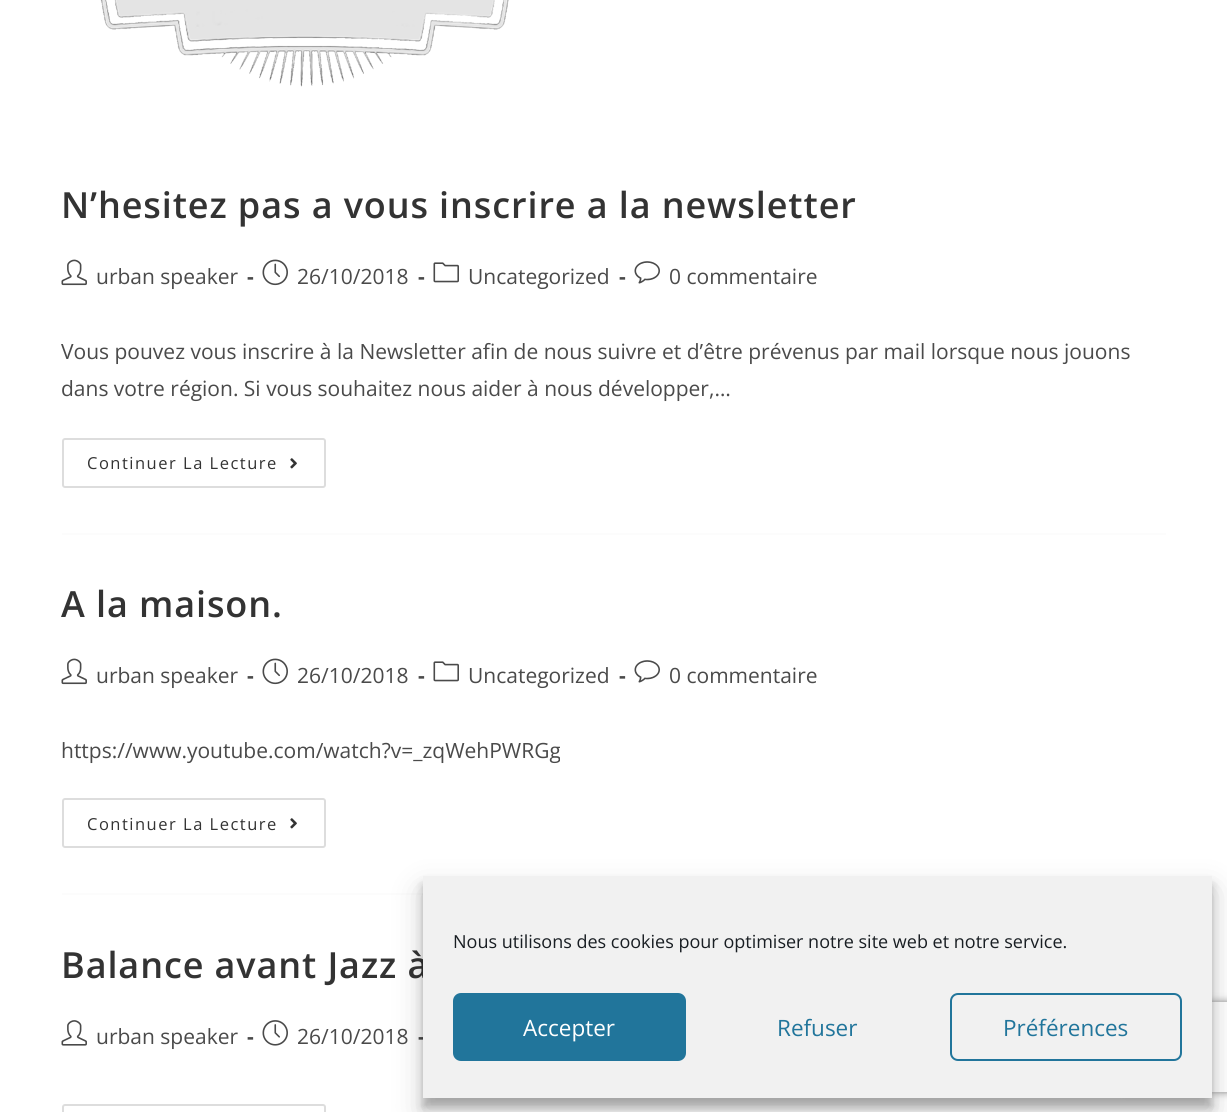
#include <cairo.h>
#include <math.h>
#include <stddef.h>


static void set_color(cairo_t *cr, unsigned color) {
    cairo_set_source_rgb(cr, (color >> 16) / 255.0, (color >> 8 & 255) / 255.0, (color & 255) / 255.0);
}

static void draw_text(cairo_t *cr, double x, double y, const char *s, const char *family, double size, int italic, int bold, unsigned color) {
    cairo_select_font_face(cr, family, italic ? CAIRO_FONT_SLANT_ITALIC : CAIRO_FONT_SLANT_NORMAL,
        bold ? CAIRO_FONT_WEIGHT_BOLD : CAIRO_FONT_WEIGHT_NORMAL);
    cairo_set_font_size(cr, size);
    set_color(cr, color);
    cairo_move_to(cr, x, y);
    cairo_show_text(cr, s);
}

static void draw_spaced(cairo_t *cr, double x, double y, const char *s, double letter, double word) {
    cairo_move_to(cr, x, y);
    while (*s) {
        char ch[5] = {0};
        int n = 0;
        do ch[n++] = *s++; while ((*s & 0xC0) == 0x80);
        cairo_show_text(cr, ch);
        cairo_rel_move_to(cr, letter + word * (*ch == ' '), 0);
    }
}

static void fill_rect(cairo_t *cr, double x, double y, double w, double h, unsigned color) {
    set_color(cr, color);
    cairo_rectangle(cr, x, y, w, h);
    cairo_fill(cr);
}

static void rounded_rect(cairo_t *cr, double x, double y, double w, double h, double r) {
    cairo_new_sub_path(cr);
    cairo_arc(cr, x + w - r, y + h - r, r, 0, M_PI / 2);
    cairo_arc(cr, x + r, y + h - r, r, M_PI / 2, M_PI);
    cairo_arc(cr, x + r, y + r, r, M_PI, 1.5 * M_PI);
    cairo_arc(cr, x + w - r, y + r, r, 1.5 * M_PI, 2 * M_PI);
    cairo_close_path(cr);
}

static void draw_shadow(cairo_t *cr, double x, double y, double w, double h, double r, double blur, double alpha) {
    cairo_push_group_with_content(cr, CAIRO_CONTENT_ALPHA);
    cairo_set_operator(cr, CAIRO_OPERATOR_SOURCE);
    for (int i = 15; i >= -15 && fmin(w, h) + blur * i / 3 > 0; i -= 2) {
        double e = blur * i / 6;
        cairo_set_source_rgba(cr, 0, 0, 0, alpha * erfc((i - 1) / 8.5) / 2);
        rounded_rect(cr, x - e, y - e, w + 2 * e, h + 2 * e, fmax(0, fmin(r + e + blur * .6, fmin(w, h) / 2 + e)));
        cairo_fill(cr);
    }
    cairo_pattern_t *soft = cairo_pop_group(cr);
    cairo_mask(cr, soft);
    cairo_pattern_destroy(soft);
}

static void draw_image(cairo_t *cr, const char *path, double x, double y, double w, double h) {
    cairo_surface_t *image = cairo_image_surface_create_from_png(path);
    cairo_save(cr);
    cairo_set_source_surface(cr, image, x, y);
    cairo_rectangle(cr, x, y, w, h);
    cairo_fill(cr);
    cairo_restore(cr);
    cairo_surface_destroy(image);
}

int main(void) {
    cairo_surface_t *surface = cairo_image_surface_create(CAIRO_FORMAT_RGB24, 1227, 1112);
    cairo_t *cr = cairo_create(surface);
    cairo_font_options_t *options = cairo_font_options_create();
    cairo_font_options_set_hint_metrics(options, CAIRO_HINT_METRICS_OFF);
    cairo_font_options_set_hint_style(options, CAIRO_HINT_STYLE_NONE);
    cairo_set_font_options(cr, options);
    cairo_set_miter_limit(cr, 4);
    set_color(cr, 0xFFFFFF);
    cairo_paint(cr);
    draw_image(cr, "assets/img1.png", 100, 0, 409, 87);
    fill_rect(cr, 62, 533, 1104, 2, 0xFCFCFC);
    cairo_select_font_face(cr, "Open Sans SemiBold", CAIRO_FONT_SLANT_NORMAL, CAIRO_FONT_WEIGHT_NORMAL);
    cairo_set_font_size(cr, 36);
    set_color(cr, 0x333333);
    draw_spaced(cr, 61, 218, "N’hesitez pas a vous inscrire a la newsletter", 0.9, 0);
    draw_image(cr, "assets/img2.png", 61, 259, 26, 27);
    draw_text(cr, 96, 284, "urban speaker", "Open Sans", 21, 0, 0, 0x4A4A4A);
    draw_text(cr, 247, 284, "-", "Open Sans", 21, 0, 1, 0x4A4A4A);
    draw_image(cr, "assets/img3.png", 262, 259, 26, 27);
    draw_text(cr, 297, 284, "26/10/2018", "Open Sans", 21, 0, 0, 0x4A4A4A);
    draw_text(cr, 418, 284, "-", "Open Sans", 21, 0, 1, 0x4A4A4A);
    draw_image(cr, "assets/img4.png", 433, 262, 26, 21);
    draw_text(cr, 468, 284, "Uncategorized", "Open Sans", 21, 0, 0, 0x4A4A4A);
    draw_text(cr, 619, 284, "-", "Open Sans", 21, 0, 1, 0x4A4A4A);
    draw_image(cr, "assets/img5.png", 634, 261, 26, 23);
    draw_text(cr, 669, 284, "0 commentaire", "Open Sans", 21, 0, 0, 0x4A4A4A);
    draw_text(cr, 61, 359, "Vous pouvez vous inscrire à la Newsletter afin de nous suivre et d’être prévenus par mail lorsque nous jouons", "Open Sans", 21, 0, 0, 0x4A4A4A);
    draw_text(cr, 61, 396, "dans votre région. Si vous souhaitez nous aider à nous développer,…", "Open Sans", 21, 0, 0, 0x4A4A4A);
    rounded_rect(cr, 63, 439, 262, 48, 2);
    set_color(cr, 0xDDDDDD);
    cairo_stroke(cr);
    cairo_set_font_size(cr, 16.5);
    set_color(cr, 0x333333);
    draw_spaced(cr, 87, 469, "Continuer La Lecture", 1.5, 0);
    draw_image(cr, "assets/img6.png", 290, 458, 7, 11);
    fill_rect(cr, 62, 893, 361, 2, 0xFCFCFC);
    cairo_select_font_face(cr, "Open Sans SemiBold", CAIRO_FONT_SLANT_NORMAL, CAIRO_FONT_WEIGHT_NORMAL);
    cairo_set_font_size(cr, 36);
    set_color(cr, 0x333333);
    draw_spaced(cr, 61, 617, "A la maison.", 0.9, 0);
    draw_image(cr, "assets/img2.png", 61, 658, 26, 27);
    draw_text(cr, 96, 683, "urban speaker", "Open Sans", 21, 0, 0, 0x4A4A4A);
    draw_text(cr, 247, 683, "-", "Open Sans", 21, 0, 1, 0x4A4A4A);
    draw_image(cr, "assets/img3.png", 262, 658, 26, 27);
    draw_text(cr, 297, 683, "26/10/2018", "Open Sans", 21, 0, 0, 0x4A4A4A);
    draw_text(cr, 418, 683, "-", "Open Sans", 21, 0, 1, 0x4A4A4A);
    draw_image(cr, "assets/img4.png", 433, 661, 26, 21);
    draw_text(cr, 468, 683, "Uncategorized", "Open Sans", 21, 0, 0, 0x4A4A4A);
    draw_text(cr, 619, 683, "-", "Open Sans", 21, 0, 1, 0x4A4A4A);
    draw_image(cr, "assets/img5.png", 634, 660, 26, 23);
    draw_text(cr, 669, 683, "0 commentaire", "Open Sans", 21, 0, 0, 0x4A4A4A);
    draw_text(cr, 61, 758, "https://www.youtube.com/watch?v=_zqWehPWRGg", "Open Sans", 21, 0, 0, 0x4A4A4A);
    rounded_rect(cr, 63, 799, 262, 48, 2);
    set_color(cr, 0xDDDDDD);
    cairo_stroke(cr);
    cairo_set_font_size(cr, 16.5);
    set_color(cr, 0x333333);
    draw_spaced(cr, 87, 830, "Continuer La Lecture", 1.5, 0);
    draw_image(cr, "assets/img6.png", 290, 818, 7, 11);
    cairo_select_font_face(cr, "Open Sans SemiBold", CAIRO_FONT_SLANT_NORMAL, CAIRO_FONT_WEIGHT_NORMAL);
    cairo_set_font_size(cr, 36);
    draw_spaced(cr, 61, 978, "Balance avant Jazz à", 0.9, 0);
    draw_image(cr, "assets/img7.png", 61, 1020, 26, 26);
    draw_text(cr, 96, 1044, "urban speaker", "Open Sans", 21, 0, 0, 0x4A4A4A);
    draw_text(cr, 247, 1044, "-", "Open Sans", 21, 0, 1, 0x4A4A4A);
    draw_image(cr, "assets/img8.png", 262, 1020, 26, 26);
    draw_text(cr, 297, 1044, "26/10/2018", "Open Sans", 21, 0, 0, 0x4A4A4A);
    draw_text(cr, 418, 1044, "-", "Open Sans", 21, 0, 1, 0x4A4A4A);
    rounded_rect(cr, 63, 1105, 262, 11, 2);
    set_color(cr, 0xDDDDDD);
    cairo_stroke(cr);
    set_color(cr, 0x000000);
    draw_shadow(cr, 423, 885, 789, 222, 0, 4.5, 0.23);
    draw_shadow(cr, 423, 891, 789, 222, 0, 15, 0.19);
    cairo_save(cr);
    cairo_set_fill_rule(cr, CAIRO_FILL_RULE_EVEN_ODD);
    cairo_new_path(cr);
    cairo_move_to(cr, 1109, 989);
    cairo_line_to(cr, 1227, 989);
    cairo_line_to(cr, 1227, 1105);
    cairo_line_to(cr, 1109, 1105);
    cairo_close_path(cr);
    cairo_move_to(cr, 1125, 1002);
    cairo_line_to(cr, 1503, 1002);
    cairo_curve_to(cr, 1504.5, 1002, 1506, 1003.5, 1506, 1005);
    cairo_line_to(cr, 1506, 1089);
    cairo_curve_to(cr, 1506, 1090.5, 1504.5, 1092, 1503, 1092);
    cairo_line_to(cr, 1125, 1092);
    cairo_curve_to(cr, 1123.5, 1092, 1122, 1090.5, 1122, 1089);
    cairo_line_to(cr, 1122, 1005);
    cairo_curve_to(cr, 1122, 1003.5, 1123.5, 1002, 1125, 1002);
    cairo_close_path(cr);
    cairo_clip(cr);
    set_color(cr, 0x808080);
    draw_shadow(cr, 1122, 1002, 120, 90, 3, 4, 1);
    cairo_restore(cr);
    fill_rect(cr, 423, 876, 789, 222, 0xF1F1F1);
    draw_text(cr, 453, 948, "Nous utilisons des cookies pour optimiser notre site web et notre service.", "Open Sans", 18, 0, 0, 0x191E23);
    set_color(cr, 0x21759B);
    rounded_rect(cr, 454, 994, 231, 66, 7);
    cairo_fill_preserve(cr);
    cairo_stroke(cr);
    draw_text(cr, 523, 1036, "Accepter", "Open Sans", 22.5, 0, 0, 0xFFFFFF);
    draw_text(cr, 777, 1036, "Refuser", "Open Sans", 22.5, 0, 0, 0x21759B);
    rounded_rect(cr, 951, 994, 230, 66, 7);
    cairo_stroke(cr);
    draw_text(cr, 1003, 1036, "Préférences", "Open Sans", 22.5, 0, 0, 0x21759B);
    cairo_surface_write_to_png(surface, "output.png");
    cairo_font_options_destroy(options);
    cairo_destroy(cr);
    cairo_surface_destroy(surface);
    return 0;
}
